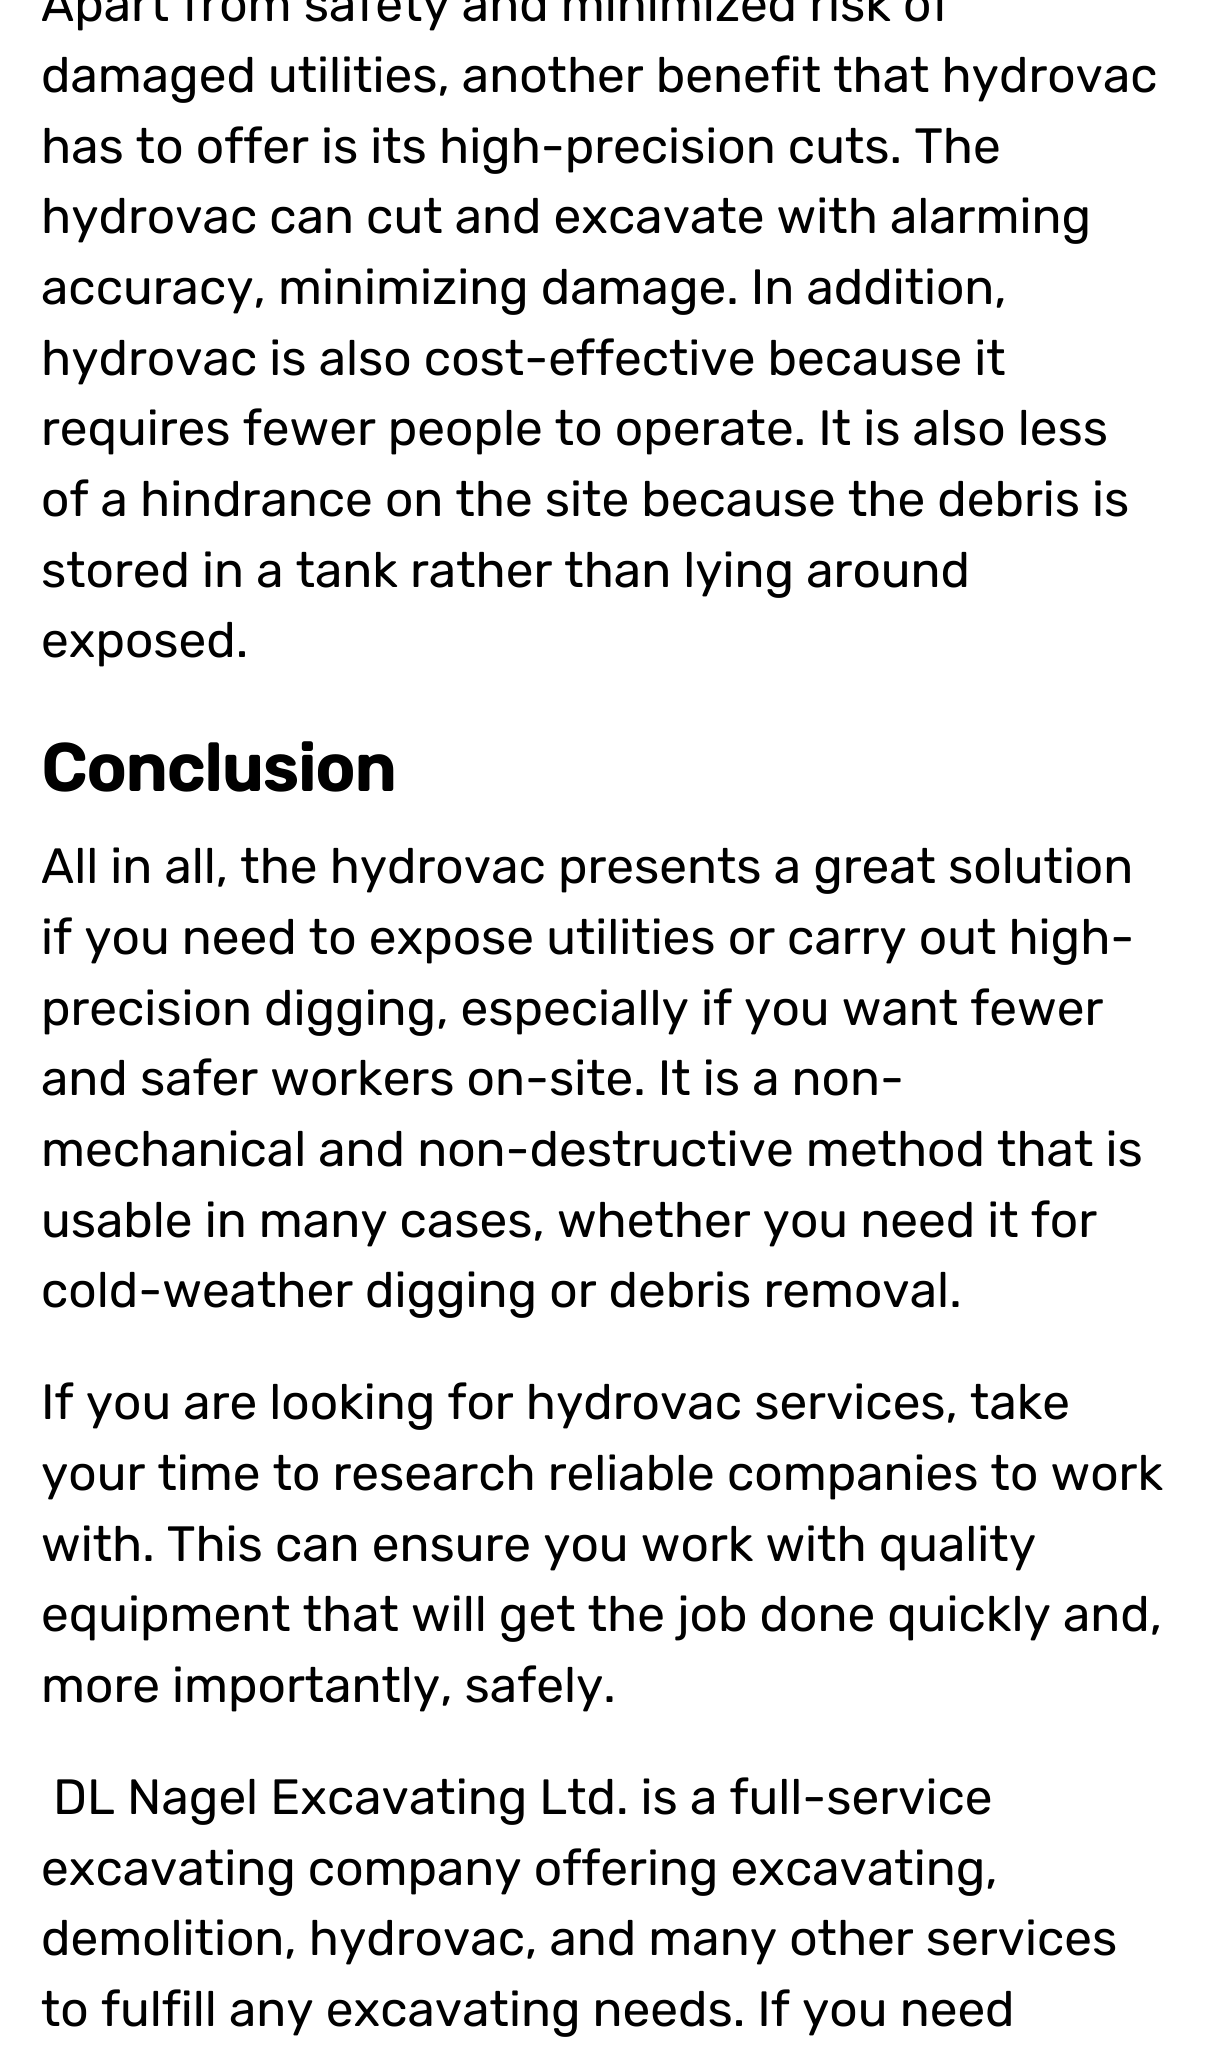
#include <cairo.h>
#include <math.h>
#include <stddef.h>


static void set_color(cairo_t *cr, unsigned color) {
    cairo_set_source_rgb(cr, (color >> 16) / 255.0, (color >> 8 & 255) / 255.0, (color & 255) / 255.0);
}

static void draw_text(cairo_t *cr, double x, double y, const char *s, const char *family, double size, int italic, int bold, unsigned color) {
    cairo_select_font_face(cr, family, italic ? CAIRO_FONT_SLANT_ITALIC : CAIRO_FONT_SLANT_NORMAL,
        bold ? CAIRO_FONT_WEIGHT_BOLD : CAIRO_FONT_WEIGHT_NORMAL);
    cairo_set_font_size(cr, size);
    set_color(cr, color);
    cairo_move_to(cr, x, y);
    cairo_show_text(cr, s);
}

int main(void) {
    cairo_surface_t *surface = cairo_image_surface_create(CAIRO_FORMAT_RGB24, 1206, 2056);
    cairo_t *cr = cairo_create(surface);
    cairo_font_options_t *options = cairo_font_options_create();
    cairo_font_options_set_hint_metrics(options, CAIRO_HINT_METRICS_OFF);
    cairo_font_options_set_hint_style(options, CAIRO_HINT_STYLE_NONE);
    cairo_set_font_options(cr, options);
    cairo_set_miter_limit(cr, 4);
    set_color(cr, 0xFFFFFF);
    cairo_paint(cr);
    draw_text(cr, 41, 21, "Apart from safety and minimized risk of", "Rubik", 49.5, 0, 0, 0x000000);
    draw_text(cr, 41, 92, "damaged utilities, another benefit that hydrovac", "Rubik", 49.5, 0, 0, 0x000000);
    draw_text(cr, 41, 163, "has to offer is its high-precision cuts. The", "Rubik", 49.5, 0, 0, 0x000000);
    draw_text(cr, 41, 233, "hydrovac can cut and excavate with alarming", "Rubik", 49.5, 0, 0, 0x000000);
    draw_text(cr, 41, 304, "accuracy, minimizing damage. In addition,", "Rubik", 49.5, 0, 0, 0x000000);
    draw_text(cr, 41, 375, "hydrovac is also cost-effective because it", "Rubik", 49.5, 0, 0, 0x000000);
    draw_text(cr, 41, 445, "requires fewer people to operate. It is also less", "Rubik", 49.5, 0, 0, 0x000000);
    draw_text(cr, 41, 516, "of a hindrance on the site because the debris is", "Rubik", 49.5, 0, 0, 0x000000);
    draw_text(cr, 41, 587, "stored in a tank rather than lying around", "Rubik", 49.5, 0, 0, 0x000000);
    draw_text(cr, 41, 657, "exposed.", "Rubik", 49.5, 0, 0, 0x000000);
    draw_text(cr, 41, 791, "Conclusion", "Rubik", 66, 0, 1, 0x000000);
    draw_text(cr, 41, 883, "All in all, the hydrovac presents a great solution", "Rubik", 49.5, 0, 0, 0x000000);
    draw_text(cr, 41, 954, "if you need to expose utilities or carry out high-", "Rubik", 49.5, 0, 0, 0x000000);
    draw_text(cr, 41, 1025, "precision digging, especially if you want fewer", "Rubik", 49.5, 0, 0, 0x000000);
    draw_text(cr, 41, 1095, "and safer workers on-site. It is a non-", "Rubik", 49.5, 0, 0, 0x000000);
    draw_text(cr, 41, 1166, "mechanical and non-destructive method that is", "Rubik", 49.5, 0, 0, 0x000000);
    draw_text(cr, 41, 1237, "usable in many cases, whether you need it for", "Rubik", 49.5, 0, 0, 0x000000);
    draw_text(cr, 41, 1307, "cold-weather digging or debris removal.", "Rubik", 49.5, 0, 0, 0x000000);
    draw_text(cr, 41, 1419, "If you are looking for hydrovac services, take", "Rubik", 49.5, 0, 0, 0x000000);
    draw_text(cr, 41, 1490, "your time to research reliable companies to work", "Rubik", 49.5, 0, 0, 0x000000);
    draw_text(cr, 41, 1561, "with. This can ensure you work with quality", "Rubik", 49.5, 0, 0, 0x000000);
    draw_text(cr, 41, 1631, "equipment that will get the job done quickly and,", "Rubik", 49.5, 0, 0, 0x000000);
    draw_text(cr, 41, 1702, "more importantly, safely.", "Rubik", 49.5, 0, 0, 0x000000);
    draw_text(cr, 53, 1814, "DL Nagel Excavating Ltd. is a full-service", "Rubik", 49.5, 0, 0, 0x000000);
    draw_text(cr, 41, 1885, "excavating company offering excavating,", "Rubik", 49.5, 0, 0, 0x000000);
    draw_text(cr, 41, 1955, "demolition, hydrovac, and many other services", "Rubik", 49.5, 0, 0, 0x000000);
    draw_text(cr, 41, 2026, "to fulfill any excavating needs. If you need", "Rubik", 49.5, 0, 0, 0x000000);
    cairo_surface_write_to_png(surface, "output.png");
    cairo_font_options_destroy(options);
    cairo_destroy(cr);
    cairo_surface_destroy(surface);
    return 0;
}
